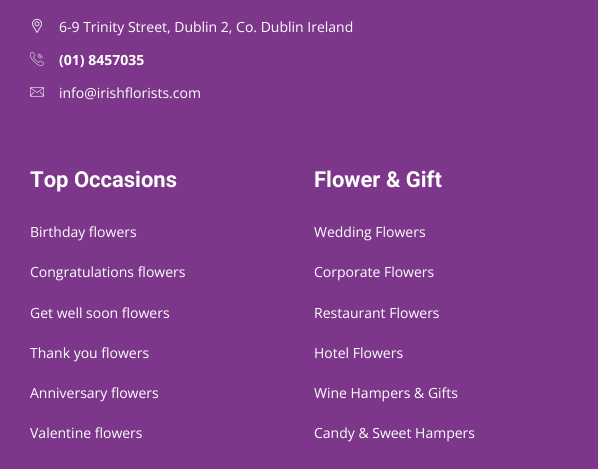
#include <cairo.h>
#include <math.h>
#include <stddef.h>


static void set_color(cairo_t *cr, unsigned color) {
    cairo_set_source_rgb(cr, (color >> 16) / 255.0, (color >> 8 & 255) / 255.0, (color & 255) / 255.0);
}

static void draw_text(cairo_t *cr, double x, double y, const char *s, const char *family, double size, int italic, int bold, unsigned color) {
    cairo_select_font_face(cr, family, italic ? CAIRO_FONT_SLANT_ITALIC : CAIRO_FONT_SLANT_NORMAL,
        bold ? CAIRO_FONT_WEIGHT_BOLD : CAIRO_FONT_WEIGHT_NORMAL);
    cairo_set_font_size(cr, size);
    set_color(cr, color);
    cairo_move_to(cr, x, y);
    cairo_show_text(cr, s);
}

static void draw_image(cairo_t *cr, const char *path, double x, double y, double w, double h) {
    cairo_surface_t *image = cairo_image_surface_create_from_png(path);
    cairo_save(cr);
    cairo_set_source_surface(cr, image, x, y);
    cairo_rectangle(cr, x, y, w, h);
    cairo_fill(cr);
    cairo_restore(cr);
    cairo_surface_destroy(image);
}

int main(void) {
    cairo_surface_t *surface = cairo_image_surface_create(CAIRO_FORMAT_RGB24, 598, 469);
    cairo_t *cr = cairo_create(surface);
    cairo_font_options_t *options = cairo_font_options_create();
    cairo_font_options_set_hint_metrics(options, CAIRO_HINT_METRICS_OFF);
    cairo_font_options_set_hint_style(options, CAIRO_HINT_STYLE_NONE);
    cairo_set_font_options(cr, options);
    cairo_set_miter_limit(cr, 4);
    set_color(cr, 0x7C378A);
    cairo_paint(cr);
    draw_image(cr, "assets/img1.png", 32, 18, 10, 15);
    draw_text(cr, 59, 32, "6-9 Trinity Street, Dublin 2, Co. Dublin Ireland", "Open Sans", 14, 0, 0, 0xFFFFFF);
    draw_image(cr, "assets/img2.png", 30, 51, 14, 15);
    draw_text(cr, 59, 65, "(01) 8457035", "Open Sans", 14, 0, 1, 0xFFFFFF);
    draw_image(cr, "assets/img3.png", 30, 87, 14, 10);
    draw_text(cr, 59, 98, "info@irishflorists.com", "Open Sans", 14, 0, 0, 0xFFFFFF);
    draw_text(cr, 30, 187, "Top Occasions", "Roboto", 22, 0, 1, 0xFFFFFF);
    draw_text(cr, 30, 237, "Birthday flowers", "Open Sans", 14, 0, 0, 0xFFFFFF);
    draw_text(cr, 30, 277, "Congratulations flowers", "Open Sans", 14, 0, 0, 0xFFFFFF);
    draw_text(cr, 30, 318, "Get well soon flowers", "Open Sans", 14, 0, 0, 0xFFFFFF);
    draw_text(cr, 30, 358, "Thank you flowers", "Open Sans", 14, 0, 0, 0xFFFFFF);
    draw_text(cr, 30, 398, "Anniversary flowers", "Open Sans", 14, 0, 0, 0xFFFFFF);
    draw_text(cr, 30, 438, "Valentine flowers", "Open Sans", 14, 0, 0, 0xFFFFFF);
    draw_text(cr, 314, 187, "Flower & Gift", "Roboto", 22, 0, 1, 0xFFFFFF);
    draw_text(cr, 314, 237, "Wedding Flowers", "Open Sans", 14, 0, 0, 0xFFFFFF);
    draw_text(cr, 314, 277, "Corporate Flowers", "Open Sans", 14, 0, 0, 0xFFFFFF);
    draw_text(cr, 314, 318, "Restaurant Flowers", "Open Sans", 14, 0, 0, 0xFFFFFF);
    draw_text(cr, 314, 358, "Hotel Flowers", "Open Sans", 14, 0, 0, 0xFFFFFF);
    draw_text(cr, 314, 398, "Wine Hampers & Gifts", "Open Sans", 14, 0, 0, 0xFFFFFF);
    draw_text(cr, 314, 438, "Candy & Sweet Hampers", "Open Sans", 14, 0, 0, 0xFFFFFF);
    cairo_surface_write_to_png(surface, "output.png");
    cairo_font_options_destroy(options);
    cairo_destroy(cr);
    cairo_surface_destroy(surface);
    return 0;
}
